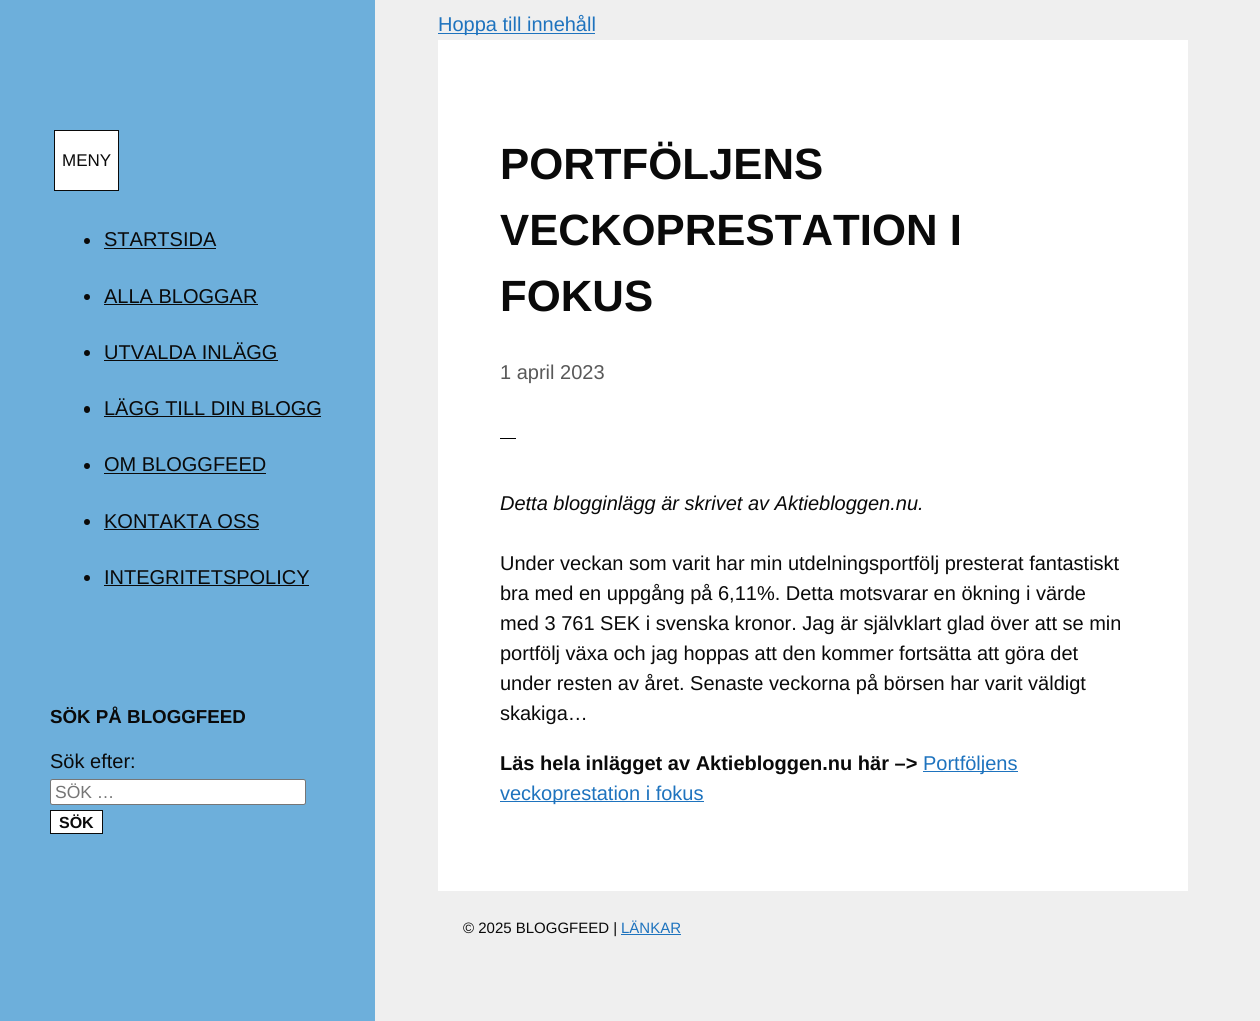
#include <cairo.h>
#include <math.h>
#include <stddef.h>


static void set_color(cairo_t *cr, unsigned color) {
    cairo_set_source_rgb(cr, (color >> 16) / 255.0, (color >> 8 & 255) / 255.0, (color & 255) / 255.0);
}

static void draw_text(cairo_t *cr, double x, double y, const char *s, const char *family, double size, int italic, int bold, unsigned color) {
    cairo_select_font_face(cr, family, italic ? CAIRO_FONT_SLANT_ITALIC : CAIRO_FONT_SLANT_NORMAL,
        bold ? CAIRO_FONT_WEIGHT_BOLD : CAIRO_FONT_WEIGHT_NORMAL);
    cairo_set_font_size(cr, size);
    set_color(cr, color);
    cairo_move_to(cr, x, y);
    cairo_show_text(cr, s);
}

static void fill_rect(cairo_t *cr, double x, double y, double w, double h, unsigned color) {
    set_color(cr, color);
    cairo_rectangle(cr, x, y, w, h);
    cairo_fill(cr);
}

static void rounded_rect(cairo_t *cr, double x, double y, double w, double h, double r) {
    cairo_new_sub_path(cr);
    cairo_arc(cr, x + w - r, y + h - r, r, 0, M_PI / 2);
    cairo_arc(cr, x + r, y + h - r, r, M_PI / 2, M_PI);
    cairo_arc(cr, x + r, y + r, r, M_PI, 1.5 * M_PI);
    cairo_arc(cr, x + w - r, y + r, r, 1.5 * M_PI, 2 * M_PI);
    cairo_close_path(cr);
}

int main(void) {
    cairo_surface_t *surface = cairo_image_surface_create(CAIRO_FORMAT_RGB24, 1260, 1021);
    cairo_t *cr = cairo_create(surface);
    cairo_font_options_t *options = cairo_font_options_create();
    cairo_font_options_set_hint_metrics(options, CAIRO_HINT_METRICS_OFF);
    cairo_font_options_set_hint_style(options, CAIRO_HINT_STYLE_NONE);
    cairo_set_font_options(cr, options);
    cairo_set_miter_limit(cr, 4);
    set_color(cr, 0xEFEFEF);
    cairo_paint(cr);
    fill_rect(cr, 438, 33, 157, 1, 0x1E73BE);
    draw_text(cr, 438, 31, "Hoppa till innehåll", "Arimo", 20, 0, 0, 0x1E73BE);
    fill_rect(cr, 0, 0, 375, 1021, 0x6DAFDB);
    set_color(cr, 0xFFFFFF);
    cairo_rectangle(cr, 54.5, 130.5, 64, 60);
    cairo_fill_preserve(cr);
    set_color(cr, 0x0A0A0A);
    cairo_set_line_width(cr, 1);
    cairo_stroke(cr);
    draw_text(cr, 62, 166, "MENY", "Arimo", 17, 0, 0, 0x0A0A0A);
    cairo_new_path(cr);
    cairo_arc(cr, 87, 241, 3, 0, 2 * M_PI);
    cairo_fill(cr);
    draw_text(cr, 104, 246, "STARTSIDA", "Arimo", 20, 0, 0, 0x0A0A0A);
    fill_rect(cr, 104, 248, 112, 1, 0x0A0A0A);
    cairo_new_path(cr);
    cairo_arc(cr, 87, 297, 3, 0, 2 * M_PI);
    cairo_fill(cr);
    draw_text(cr, 104, 303, "ALLA BLOGGAR", "Arimo", 20, 0, 0, 0x0A0A0A);
    fill_rect(cr, 104, 304, 154, 1, 0x0A0A0A);
    cairo_new_path(cr);
    cairo_arc(cr, 87, 353, 3, 0, 2 * M_PI);
    cairo_fill(cr);
    draw_text(cr, 104, 359, "UTVALDA INLÄGG", "Arimo", 20, 0, 0, 0x0A0A0A);
    fill_rect(cr, 104, 360, 174, 1, 0x0A0A0A);
    rounded_rect(cr, 84, 406, 6, 7, 3);
    cairo_fill(cr);
    draw_text(cr, 104, 415, "LÄGG TILL DIN BLOGG", "Arimo", 20, 0, 0, 0x0A0A0A);
    fill_rect(cr, 104, 416, 217, 1, 0x0A0A0A);
    cairo_new_path(cr);
    cairo_arc(cr, 87, 466, 3, 0, 2 * M_PI);
    cairo_fill(cr);
    draw_text(cr, 104, 471, "OM BLOGGFEED", "Arimo", 20, 0, 0, 0x0A0A0A);
    fill_rect(cr, 104, 473, 162, 1, 0x0A0A0A);
    cairo_new_path(cr);
    cairo_arc(cr, 87, 522, 3, 0, 2 * M_PI);
    cairo_fill(cr);
    draw_text(cr, 104, 528, "KONTAKTA OSS", "Arimo", 20, 0, 0, 0x0A0A0A);
    fill_rect(cr, 104, 529, 155, 1, 0x0A0A0A);
    cairo_new_path(cr);
    cairo_arc(cr, 87, 578, 3, 0, 2 * M_PI);
    cairo_fill(cr);
    draw_text(cr, 104, 584, "INTEGRITETSPOLICY", "Arimo", 20, 0, 0, 0x0A0A0A);
    fill_rect(cr, 104, 585, 205, 1, 0x0A0A0A);
    draw_text(cr, 50, 723, "SÖK PÅ BLOGGFEED", "Arimo", 18.75, 0, 1, 0x0A0A0A);
    draw_text(cr, 50, 768, "Sök efter:", "Arimo", 20, 0, 0, 0x0A0A0A);
    set_color(cr, 0xFFFFFF);
    rounded_rect(cr, 50.5, 779.5, 255, 25, 2);
    cairo_fill_preserve(cr);
    set_color(cr, 0x767676);
    cairo_stroke(cr);
    draw_text(cr, 55, 798, "SÖK …", "Arimo", 17.5, 0, 0, 0x757575);
    set_color(cr, 0xFFFFFF);
    cairo_rectangle(cr, 50.5, 810.5, 52, 23);
    cairo_fill_preserve(cr);
    set_color(cr, 0x0A0A0A);
    cairo_stroke(cr);
    draw_text(cr, 59, 828, "SÖK", "Arimo", 16, 0, 1, 0x0A0A0A);
    fill_rect(cr, 438, 40, 750, 851, 0xFFFFFF);
    draw_text(cr, 500, 179, "PORTFÖLJENS", "Arimo", 43.75, 0, 1, 0x0A0A0A);
    draw_text(cr, 500, 245, "VECKOPRESTATION I", "Arimo", 43.75, 0, 1, 0x0A0A0A);
    draw_text(cr, 500, 311, "FOKUS", "Arimo", 43.75, 0, 1, 0x0A0A0A);
    draw_text(cr, 500, 379, "1 april 2023", "Arimo", 20, 0, 0, 0x595959);
    fill_rect(cr, 500, 438, 16, 1, 0x000000);
    draw_text(cr, 500, 510, "Detta blogginlägg är skrivet av Aktiebloggen.nu.", "Arimo", 20, 1, 0, 0x0A0A0A);
    draw_text(cr, 500, 570, "Under veckan som varit har min utdelningsportfölj presterat fantastiskt", "Arimo", 20, 0, 0, 0x0A0A0A);
    draw_text(cr, 500, 600, "bra med en uppgång på 6,11%. Detta motsvarar en ökning i värde", "Arimo", 20, 0, 0, 0x0A0A0A);
    draw_text(cr, 500, 630, "med 3 761 SEK i svenska kronor. Jag är självklart glad över att se min", "Arimo", 20, 0, 0, 0x0A0A0A);
    draw_text(cr, 500, 660, "portfölj växa och jag hoppas att den kommer fortsätta att göra det", "Arimo", 20, 0, 0, 0x0A0A0A);
    draw_text(cr, 500, 690, "under resten av året. Senaste veckorna på börsen har varit väldigt", "Arimo", 20, 0, 0, 0x0A0A0A);
    draw_text(cr, 500, 720, "skakiga…", "Arimo", 20, 0, 0, 0x0A0A0A);
    draw_text(cr, 500, 770, "Läs hela inlägget av Aktiebloggen.nu här –>", "Arimo", 20, 0, 1, 0x0A0A0A);
    fill_rect(cr, 923, 771, 95, 1, 0x1E73BE);
    draw_text(cr, 923, 770, "Portföljens", "Arimo", 20, 0, 0, 0x1E73BE);
    fill_rect(cr, 500, 801, 204, 1, 0x1E73BE);
    draw_text(cr, 500, 800, "veckoprestation i fokus", "Arimo", 20, 0, 0, 0x1E73BE);
    draw_text(cr, 463, 933, "© 2025 BLOGGFEED |", "Arimo", 15, 0, 0, 0x0A0A0A);
    draw_text(cr, 621, 933, "LÄNKAR", "Arimo", 15, 0, 0, 0x1E73BE);
    fill_rect(cr, 621, 934, 60, 1, 0x1E73BE);
    cairo_surface_write_to_png(surface, "output.png");
    cairo_font_options_destroy(options);
    cairo_destroy(cr);
    cairo_surface_destroy(surface);
    return 0;
}
